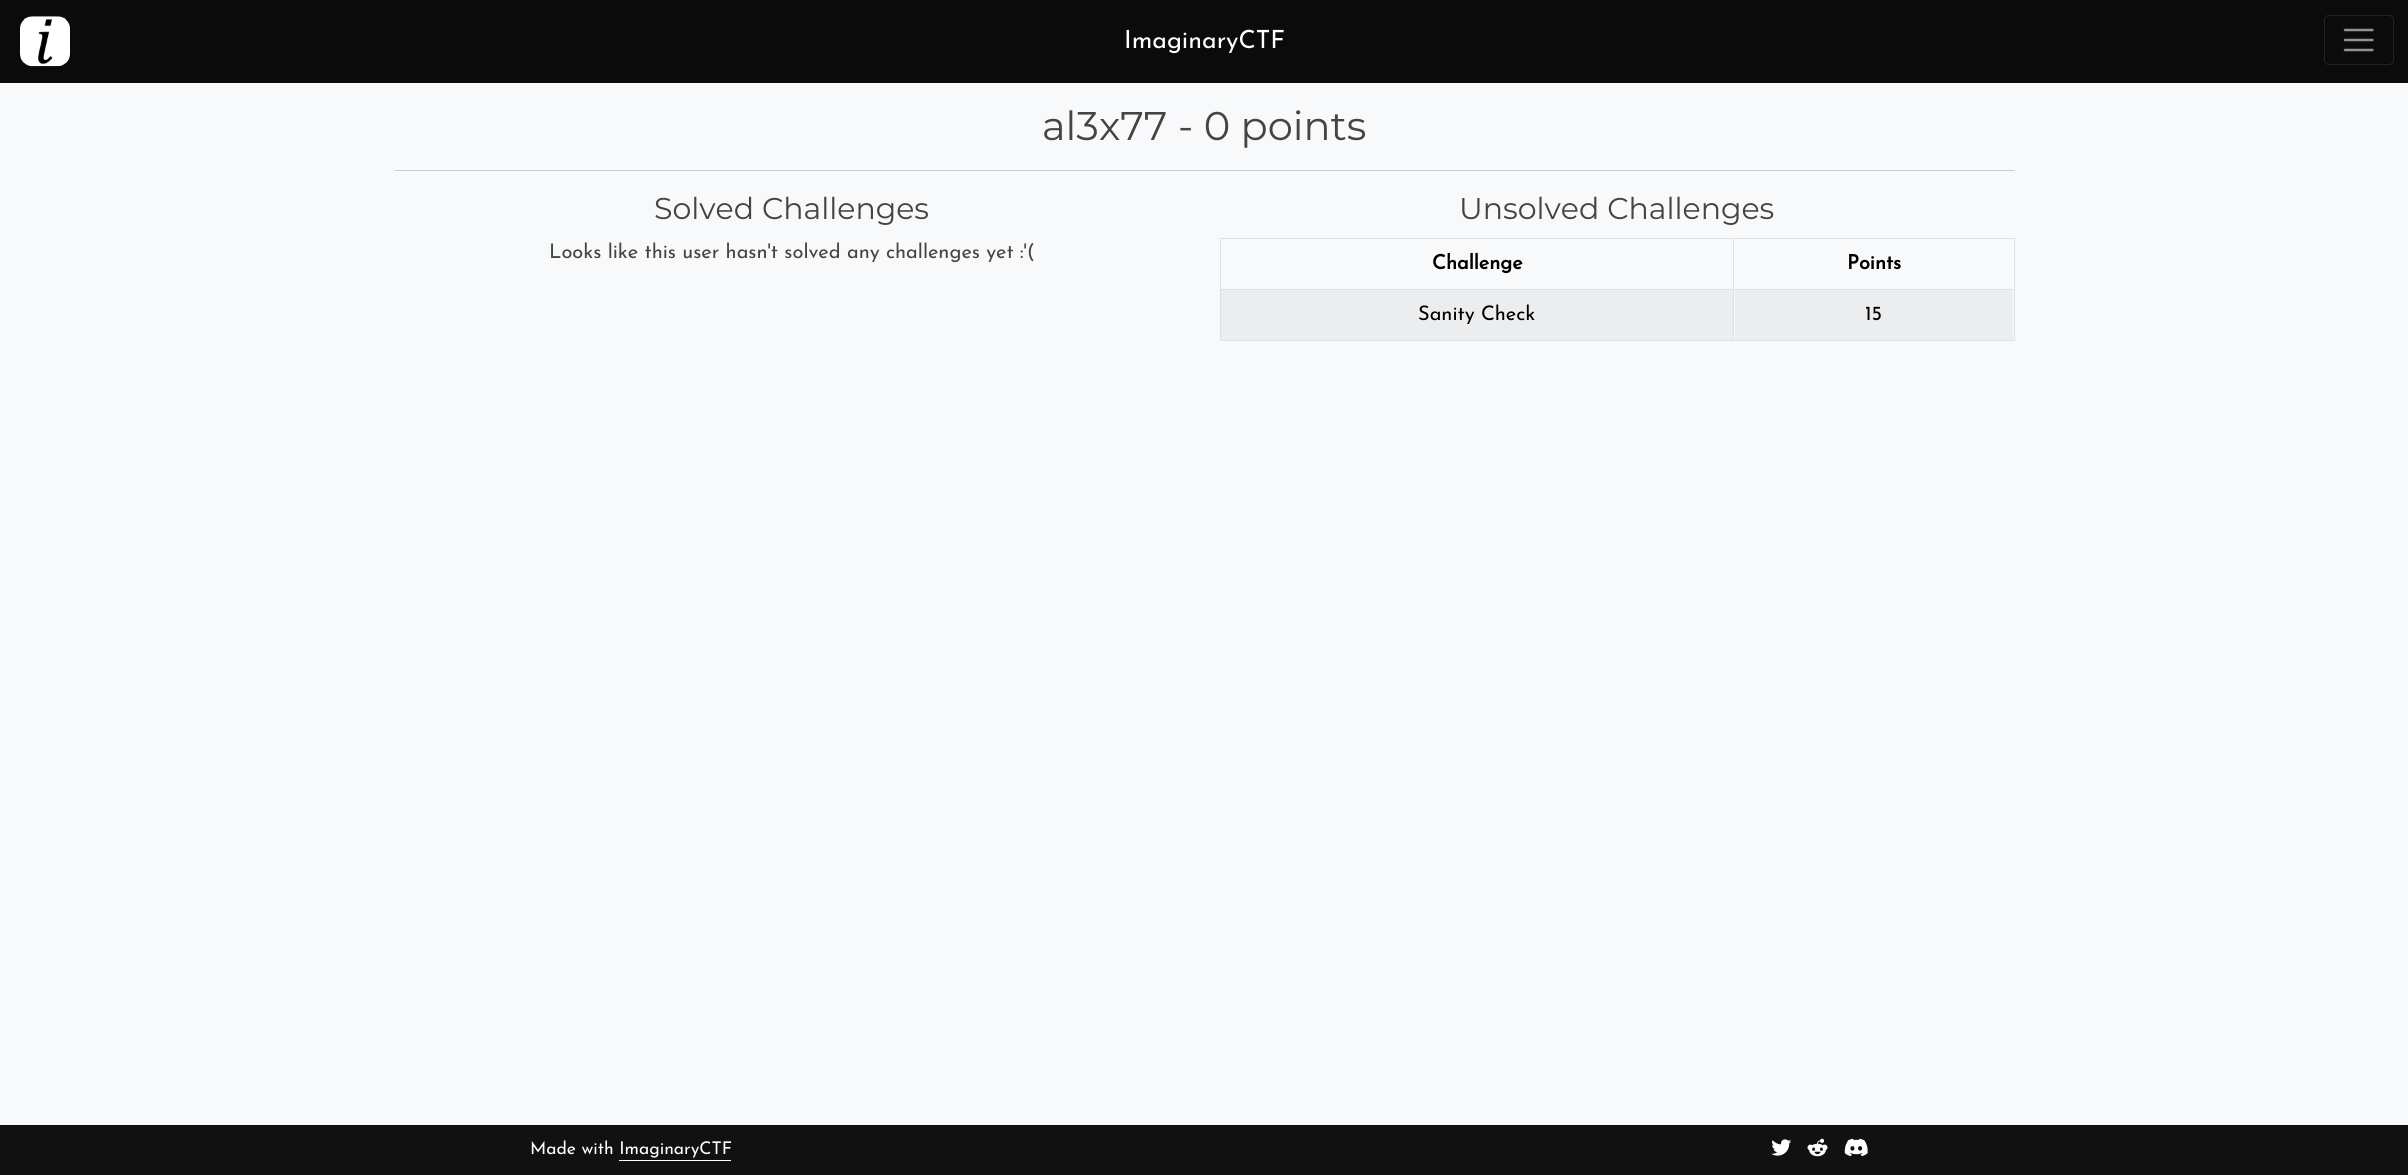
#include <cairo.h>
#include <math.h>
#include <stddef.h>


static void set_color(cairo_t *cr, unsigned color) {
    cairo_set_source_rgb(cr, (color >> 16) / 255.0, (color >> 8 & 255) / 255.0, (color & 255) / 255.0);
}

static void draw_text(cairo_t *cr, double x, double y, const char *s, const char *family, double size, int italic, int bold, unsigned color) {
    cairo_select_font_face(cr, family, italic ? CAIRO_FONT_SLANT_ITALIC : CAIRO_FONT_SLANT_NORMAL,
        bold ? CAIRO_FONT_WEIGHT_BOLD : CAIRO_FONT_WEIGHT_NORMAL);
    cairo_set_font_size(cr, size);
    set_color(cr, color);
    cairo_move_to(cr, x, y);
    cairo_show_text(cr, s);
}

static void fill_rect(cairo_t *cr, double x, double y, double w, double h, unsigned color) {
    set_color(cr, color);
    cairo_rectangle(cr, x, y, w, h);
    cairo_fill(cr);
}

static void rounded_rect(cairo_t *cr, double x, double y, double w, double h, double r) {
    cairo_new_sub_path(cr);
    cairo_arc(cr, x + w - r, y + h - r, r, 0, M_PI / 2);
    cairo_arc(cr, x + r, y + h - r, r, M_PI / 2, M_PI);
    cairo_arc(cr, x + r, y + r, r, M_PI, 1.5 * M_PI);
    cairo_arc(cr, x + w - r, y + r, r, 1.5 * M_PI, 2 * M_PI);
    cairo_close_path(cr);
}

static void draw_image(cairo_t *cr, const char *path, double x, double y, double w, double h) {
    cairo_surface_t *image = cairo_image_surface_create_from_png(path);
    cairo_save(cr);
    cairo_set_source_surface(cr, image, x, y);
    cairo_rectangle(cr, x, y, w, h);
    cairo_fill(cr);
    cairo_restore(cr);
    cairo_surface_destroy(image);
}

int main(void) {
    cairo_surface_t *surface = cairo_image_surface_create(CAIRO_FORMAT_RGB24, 2408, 1175);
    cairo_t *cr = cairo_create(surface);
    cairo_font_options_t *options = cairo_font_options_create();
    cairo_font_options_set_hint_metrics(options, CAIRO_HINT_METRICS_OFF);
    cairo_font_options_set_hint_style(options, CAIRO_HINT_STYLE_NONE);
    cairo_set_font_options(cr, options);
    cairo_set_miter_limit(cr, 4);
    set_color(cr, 0xF8F9FA);
    cairo_paint(cr);
    fill_rect(cr, 0, 0, 2408, 83, 0x0B0B0B);
    draw_image(cr, "assets/img1.png", 20, 16, 50, 51);
    draw_text(cr, 1124, 48, "ImaginaryCTF", "Josefin Sans Thin", 25, 0, 0, 0xFFFFFF);
    rounded_rect(cr, 2324.5, 15.5, 69, 49, 4.5);
    set_color(cr, 0x232323);
    cairo_set_line_width(cr, 1);
    cairo_stroke(cr);
    cairo_new_path(cr);
    cairo_move_to(cr, 2345, 30);
    cairo_line_to(cr, 2372.5, 30);
    cairo_move_to(cr, 2345, 40);
    cairo_line_to(cr, 2372.5, 40);
    cairo_move_to(cr, 2345, 50);
    cairo_line_to(cr, 2372.5, 50);
    set_color(cr, 0x919191);
    cairo_set_line_width(cr, 2.5);
    cairo_set_line_cap(cr, CAIRO_LINE_CAP_ROUND);
    cairo_stroke(cr);
    draw_text(cr, 1042, 140, "al3x77 - 0 points", "Montserrat Thin", 40, 0, 0, 0x444444);
    fill_rect(cr, 395, 170, 1620, 1, 0xCBCCCD);
    draw_text(cr, 654, 219, "Solved Challenges", "Montserrat Thin", 30, 0, 0, 0x444444);
    draw_text(cr, 549, 258, "Looks like this user hasn't solved any challenges yet :'(", "Josefin Sans Thin", 20, 0, 0, 0x444444);
    draw_text(cr, 1459, 219, "Unsolved Challenges", "Montserrat Thin", 30, 0, 0, 0x444444);
    fill_rect(cr, 1220, 238, 795, 1, 0xDFE0E1);
    draw_text(cr, 1432, 269, "Challenge", "Josefin Sans", 20, 0, 1, 0x000000);
    draw_text(cr, 1847, 269, "Points", "Josefin Sans", 20, 0, 1, 0x000000);
    fill_rect(cr, 1220, 289, 795, 1, 0xDFE0E1);
    fill_rect(cr, 1220, 340, 795, 1, 0xDFE0E1);
    fill_rect(cr, 1221, 290, 512, 50, 0xECEDEE);
    fill_rect(cr, 1220, 238, 1, 103, 0xDFE0E1);
    draw_text(cr, 1418, 320, "Sanity Check", "Josefin Sans Thin", 20, 0, 0, 0x000000);
    fill_rect(cr, 1735, 290, 278, 50, 0xECEDEE);
    fill_rect(cr, 2014, 238, 1, 103, 0xDFE0E1);
    fill_rect(cr, 1733, 238, 1, 103, 0xDFE0E1);
    draw_text(cr, 1865, 320, "15", "Josefin Sans Thin", 20, 0, 0, 0x000000);
    fill_rect(cr, 0, 1125, 2408, 50, 0x111111);
    draw_text(cr, 530, 1154, "Made with ImaginaryCTF", "Josefin Sans Thin", 17.5, 0, 0, 0xFFFFFF);
    fill_rect(cr, 619, 1160, 112, 1, 0xFFFFFF);
    draw_image(cr, "assets/img2.png", 1771, 1139, 21, 17);
    draw_image(cr, "assets/img3.png", 1807, 1138, 21, 19);
    draw_image(cr, "assets/img4.png", 1844, 1138, 24, 19);
    cairo_surface_write_to_png(surface, "output.png");
    cairo_font_options_destroy(options);
    cairo_destroy(cr);
    cairo_surface_destroy(surface);
    return 0;
}
